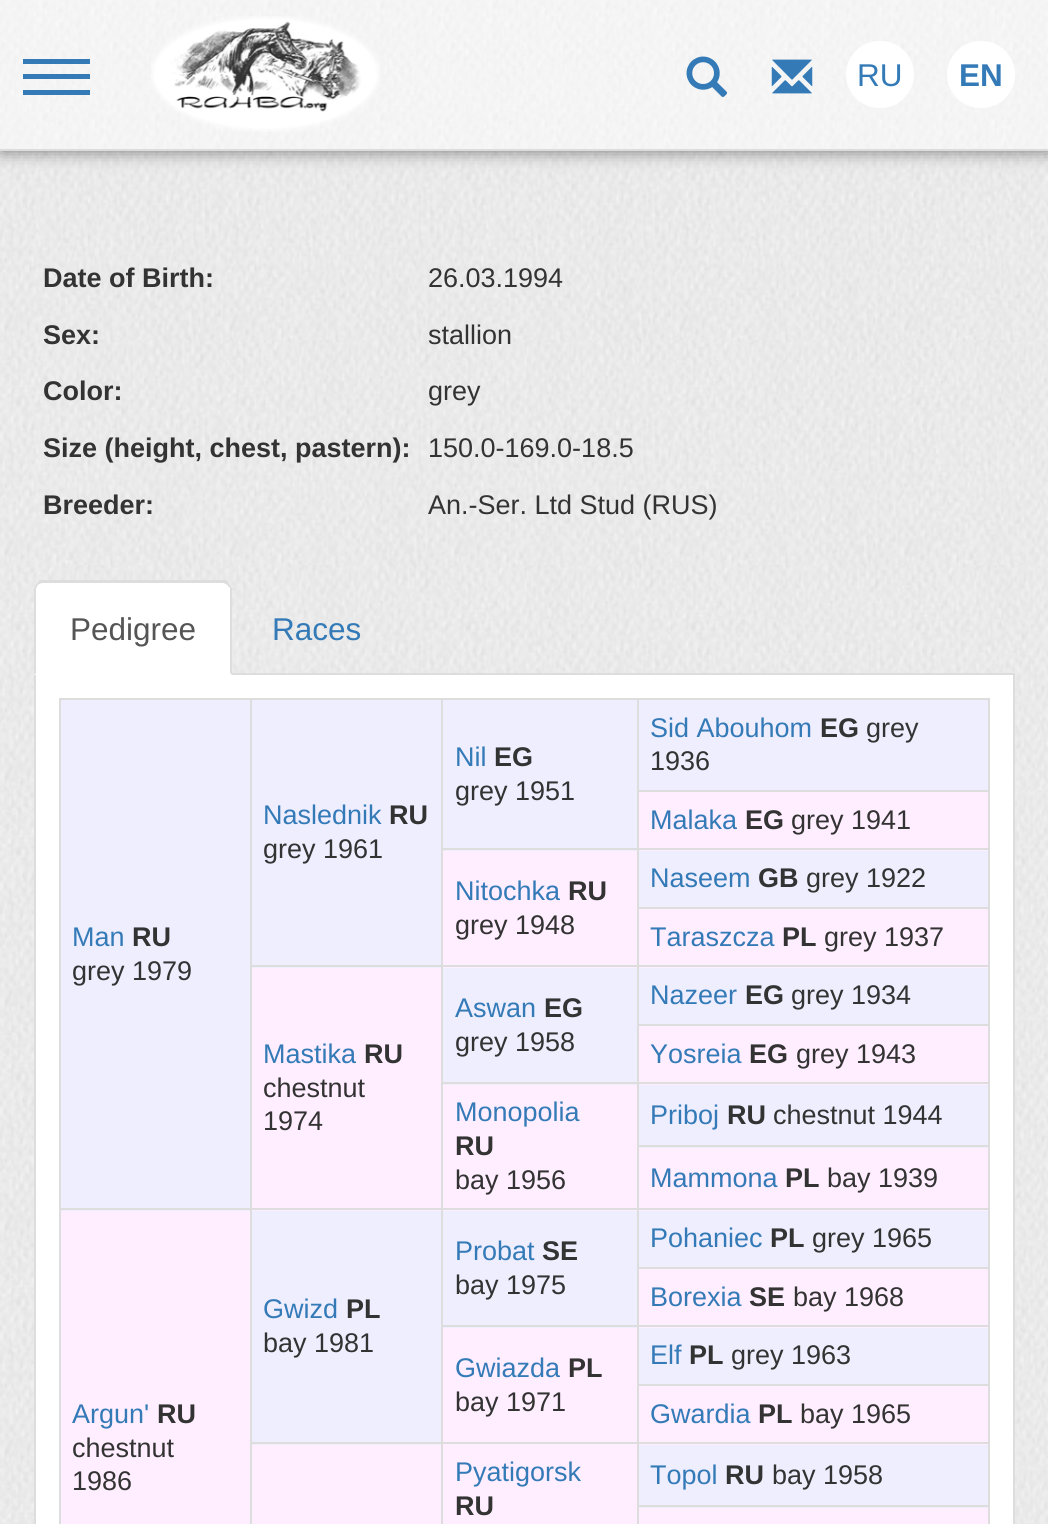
#include <cairo.h>
#include <math.h>
#include <stddef.h>


static void set_color(cairo_t *cr, unsigned color) {
    cairo_set_source_rgb(cr, (color >> 16) / 255.0, (color >> 8 & 255) / 255.0, (color & 255) / 255.0);
}

static void draw_text(cairo_t *cr, double x, double y, const char *s, const char *family, double size, int italic, int bold, unsigned color) {
    cairo_select_font_face(cr, family, italic ? CAIRO_FONT_SLANT_ITALIC : CAIRO_FONT_SLANT_NORMAL,
        bold ? CAIRO_FONT_WEIGHT_BOLD : CAIRO_FONT_WEIGHT_NORMAL);
    cairo_set_font_size(cr, size);
    set_color(cr, color);
    cairo_move_to(cr, x, y);
    cairo_show_text(cr, s);
}

static void fill_rect(cairo_t *cr, double x, double y, double w, double h, unsigned color) {
    set_color(cr, color);
    cairo_rectangle(cr, x, y, w, h);
    cairo_fill(cr);
}

static void rounded_rect(cairo_t *cr, double x, double y, double w, double h, double r) {
    cairo_new_sub_path(cr);
    cairo_arc(cr, x + w - r, y + h - r, r, 0, M_PI / 2);
    cairo_arc(cr, x + r, y + h - r, r, M_PI / 2, M_PI);
    cairo_arc(cr, x + r, y + r, r, M_PI, 1.5 * M_PI);
    cairo_arc(cr, x + w - r, y + r, r, 1.5 * M_PI, 2 * M_PI);
    cairo_close_path(cr);
}

static void draw_shadow(cairo_t *cr, double x, double y, double w, double h, double r, double blur, double alpha) {
    cairo_push_group_with_content(cr, CAIRO_CONTENT_ALPHA);
    cairo_set_operator(cr, CAIRO_OPERATOR_SOURCE);
    for (int i = 15; i >= -15 && fmin(w, h) + blur * i / 3 > 0; i -= 2) {
        double e = blur * i / 6;
        cairo_set_source_rgba(cr, 0, 0, 0, alpha * erfc((i - 1) / 8.5) / 2);
        rounded_rect(cr, x - e, y - e, w + 2 * e, h + 2 * e, fmax(0, fmin(r + e + blur * .6, fmin(w, h) / 2 + e)));
        cairo_fill(cr);
    }
    cairo_pattern_t *soft = cairo_pop_group(cr);
    cairo_mask(cr, soft);
    cairo_pattern_destroy(soft);
}

static void draw_image(cairo_t *cr, const char *path, double x, double y, double w, double h) {
    cairo_surface_t *image = cairo_image_surface_create_from_png(path);
    cairo_save(cr);
    cairo_set_source_surface(cr, image, x, y);
    cairo_rectangle(cr, x, y, w, h);
    cairo_fill(cr);
    cairo_restore(cr);
    cairo_surface_destroy(image);
}

int main(void) {
    cairo_surface_t *surface = cairo_image_surface_create(CAIRO_FORMAT_RGB24, 1048, 1524);
    cairo_t *cr = cairo_create(surface);
    cairo_font_options_t *options = cairo_font_options_create();
    cairo_font_options_set_hint_metrics(options, CAIRO_HINT_METRICS_OFF);
    cairo_font_options_set_hint_style(options, CAIRO_HINT_STYLE_NONE);
    cairo_set_font_options(cr, options);
    cairo_set_miter_limit(cr, 4);
    set_color(cr, 0xFFFFFF);
    cairo_paint(cr);
    draw_image(cr, "assets/img1.png", 0, 151, 1048, 1373);
    set_color(cr, 0x000000);
    draw_shadow(cr, 0, 0, 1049, 151, 0, 9, 0.5);
    draw_image(cr, "assets/img2.png", 0, 0, 1048, 149);
    fill_rect(cr, 0, 149, 1048, 2, 0xDCDCDC);
    fill_rect(cr, 23, 74, 67, 5, 0x337AB7);
    fill_rect(cr, 23, 59, 67, 5, 0x337AB7);
    fill_rect(cr, 23, 90, 67, 5, 0x337AB7);
    draw_image(cr, "assets/img3.png", 151, 16, 229, 116);
    draw_image(cr, "assets/img4.png", 686, 56, 42, 41);
    draw_image(cr, "assets/img5.png", 771, 59, 42, 35);
    set_color(cr, 0xFFFFFF);
    rounded_rect(cr, 846, 41, 68, 67, 33.5);
    cairo_fill(cr);
    draw_text(cr, 857, 86, "RU", "Liberation Sans", 31.5, 0, 0, 0x337AB7);
    set_color(cr, 0xFFFFFF);
    rounded_rect(cr, 947, 41, 68, 67, 33.5);
    cairo_fill(cr);
    draw_text(cr, 959, 86, "EN", "Liberation Sans", 31.5, 0, 1, 0x337AB7);
    draw_text(cr, 43, 287, "Date of Birth:", "Liberation Sans", 27, 0, 1, 0x333333);
    draw_text(cr, 428, 287, "26.03.1994", "Liberation Sans", 27, 0, 0, 0x333333);
    draw_text(cr, 43, 344, "Sex:", "Liberation Sans", 27, 0, 1, 0x333333);
    draw_text(cr, 428, 344, "stallion", "Liberation Sans", 27, 0, 0, 0x333333);
    draw_text(cr, 43, 400, "Color:", "Liberation Sans", 27, 0, 1, 0x333333);
    draw_text(cr, 428, 400, "grey", "Liberation Sans", 27, 0, 0, 0x333333);
    draw_text(cr, 43, 457, "Size (height, chest, pastern):", "Liberation Sans", 27, 0, 1, 0x333333);
    draw_text(cr, 428, 457, "150.0-169.0-18.5", "Liberation Sans", 27, 0, 0, 0x333333);
    draw_text(cr, 43, 514, "Breeder:", "Liberation Sans", 27, 0, 1, 0x333333);
    draw_text(cr, 428, 514, "An.-Ser. Ltd Stud (RUS)", "Liberation Sans", 27, 0, 0, 0x333333);
    fill_rect(cr, 232, 673, 783, 2, 0xDDDDDD);
    set_color(cr, 0xFFFFFF);
    cairo_new_path(cr);
    cairo_move_to(cr, 43, 581);
    cairo_line_to(cr, 223, 581);
    cairo_curve_to(cr, 228, 581, 232, 585, 232, 590);
    cairo_line_to(cr, 232, 675);
    cairo_line_to(cr, 34, 675);
    cairo_line_to(cr, 34, 590);
    cairo_curve_to(cr, 34, 585, 38, 581, 43, 581);
    cairo_close_path(cr);
    cairo_fill(cr);
    set_color(cr, 0xDDDDDD);
    cairo_new_path(cr);
    cairo_move_to(cr, 43, 583);
    cairo_curve_to(cr, 41, 583, 39, 584, 38, 585);
    cairo_line_to(cr, 37, 583);
    cairo_line_to(cr, 40, 580);
    cairo_line_to(cr, 226, 580);
    cairo_line_to(cr, 229, 583);
    cairo_line_to(cr, 227, 585);
    cairo_curve_to(cr, 226, 584, 224, 583, 223, 583);
    cairo_close_path(cr);
    cairo_fill(cr);
    cairo_new_path(cr);
    cairo_move_to(cr, 232, 588);
    cairo_line_to(cr, 232, 675);
    cairo_line_to(cr, 230, 673);
    cairo_line_to(cr, 230, 588);
    cairo_line_to(cr, 227, 585);
    cairo_line_to(cr, 229, 583);
    cairo_close_path(cr);
    cairo_fill(cr);
    cairo_new_path(cr);
    cairo_move_to(cr, 34, 675);
    cairo_line_to(cr, 34, 590);
    cairo_curve_to(cr, 34, 588, 35, 585, 37, 583);
    cairo_line_to(cr, 38, 585);
    cairo_curve_to(cr, 37, 586, 36, 588, 36, 590);
    cairo_line_to(cr, 36, 673);
    cairo_close_path(cr);
    cairo_fill(cr);
    draw_text(cr, 70, 640, "Pedigree", "Liberation Sans", 31.5, 0, 0, 0x555555);
    draw_text(cr, 272, 640, "Races", "Liberation Sans", 31.5, 0, 0, 0x337AB7);
    fill_rect(cr, 36, 675, 977, 849, 0xFFFFFF);
    fill_rect(cr, 1013, 675, 2, 849, 0xDDDDDD);
    fill_rect(cr, 34, 675, 2, 849, 0xDDDDDD);
    fill_rect(cr, 59, 698, 931, 2, 0xDDDDDD);
    fill_rect(cr, 988, 698, 2, 826, 0xDDDDDD);
    fill_rect(cr, 59, 698, 2, 826, 0xDDDDDD);
    fill_rect(cr, 443, 700, 194, 151, 0xEEEEFF);
    draw_text(cr, 455, 766, "Nil", "Liberation Sans", 27, 0, 0, 0x337AB7);
    draw_text(cr, 494, 766, "EG", "Liberation Sans", 27, 0, 1, 0x333333);
    draw_text(cr, 455, 800, "grey 1951", "Liberation Sans", 27, 0, 0, 0x333333);
    fill_rect(cr, 639, 700, 349, 90, 0xEEEEFF);
    draw_text(cr, 650, 737, "Sid Abouhom", "Liberation Sans", 27, 0, 0, 0x337AB7);
    draw_text(cr, 820, 737, "EG", "Liberation Sans", 27, 0, 1, 0x333333);
    draw_text(cr, 866, 737, "grey", "Liberation Sans", 27, 0, 0, 0x333333);
    draw_text(cr, 650, 770, "1936", "Liberation Sans", 27, 0, 0, 0x333333);
    fill_rect(cr, 252, 700, 189, 268, 0xEEEEFF);
    draw_text(cr, 263, 824, "Naslednik", "Liberation Sans", 27, 0, 0, 0x337AB7);
    draw_text(cr, 389, 824, "RU", "Liberation Sans", 27, 0, 1, 0x333333);
    draw_text(cr, 263, 858, "grey 1961", "Liberation Sans", 27, 0, 0, 0x333333);
    fill_rect(cr, 61, 700, 189, 511, 0xEEEEFF);
    draw_text(cr, 72, 946, "Man", "Liberation Sans", 27, 0, 0, 0x337AB7);
    draw_text(cr, 132, 946, "RU", "Liberation Sans", 27, 0, 1, 0x333333);
    draw_text(cr, 72, 980, "grey 1979", "Liberation Sans", 27, 0, 0, 0x333333);
    fill_rect(cr, 639, 792, 349, 59, 0xFFEEFF);
    fill_rect(cr, 637, 790, 353, 2, 0xDDDDDD);
    fill_rect(cr, 637, 848, 353, 2, 0xDDDDDD);
    fill_rect(cr, 637, 907, 353, 2, 0xDDDDDD);
    fill_rect(cr, 443, 851, 194, 117, 0xFFEEFF);
    fill_rect(cr, 639, 909, 349, 59, 0xFFEEFF);
    fill_rect(cr, 637, 965, 353, 2, 0xDDDDDD);
    fill_rect(cr, 637, 1024, 353, 2, 0xDDDDDD);
    fill_rect(cr, 443, 968, 194, 117, 0xEEEEFF);
    fill_rect(cr, 639, 1026, 349, 59, 0xFFEEFF);
    fill_rect(cr, 637, 1082, 353, 2, 0xDDDDDD);
    fill_rect(cr, 639, 1085, 349, 63, 0xEEEEFF);
    fill_rect(cr, 637, 1145, 353, 2, 0xDDDDDD);
    fill_rect(cr, 443, 1085, 194, 126, 0xFFEEFF);
    fill_rect(cr, 639, 1148, 349, 63, 0xFFEEFF);
    fill_rect(cr, 637, 1208, 353, 2, 0xDDDDDD);
    fill_rect(cr, 637, 1267, 353, 2, 0xDDDDDD);
    fill_rect(cr, 443, 1211, 194, 117, 0xEEEEFF);
    fill_rect(cr, 639, 1269, 349, 59, 0xFFEEFF);
    fill_rect(cr, 637, 1325, 353, 2, 0xDDDDDD);
    fill_rect(cr, 637, 1384, 353, 2, 0xDDDDDD);
    fill_rect(cr, 443, 1328, 194, 196, 0xFFEEFF);
    fill_rect(cr, 639, 1386, 349, 59, 0xFFEEFF);
    fill_rect(cr, 637, 1442, 353, 2, 0xDDDDDD);
    fill_rect(cr, 639, 1445, 349, 63, 0xEEEEFF);
    fill_rect(cr, 637, 1505, 353, 2, 0xDDDDDD);
    fill_rect(cr, 637, 1505, 2, 19, 0xDDDDDD);
    fill_rect(cr, 637, 1442, 2, 66, 0xDDDDDD);
    fill_rect(cr, 441, 1442, 198, 2, 0xDDDDDD);
    fill_rect(cr, 637, 1384, 2, 61, 0xDDDDDD);
    fill_rect(cr, 637, 1325, 2, 61, 0xDDDDDD);
    fill_rect(cr, 441, 1325, 198, 2, 0xDDDDDD);
    fill_rect(cr, 637, 1267, 2, 61, 0xDDDDDD);
    fill_rect(cr, 637, 1208, 2, 61, 0xDDDDDD);
    fill_rect(cr, 441, 1208, 198, 2, 0xDDDDDD);
    fill_rect(cr, 637, 1145, 2, 66, 0xDDDDDD);
    fill_rect(cr, 637, 1082, 2, 66, 0xDDDDDD);
    fill_rect(cr, 441, 1082, 198, 2, 0xDDDDDD);
    fill_rect(cr, 637, 1024, 2, 61, 0xDDDDDD);
    fill_rect(cr, 637, 965, 2, 61, 0xDDDDDD);
    fill_rect(cr, 441, 965, 198, 2, 0xDDDDDD);
    fill_rect(cr, 637, 907, 2, 61, 0xDDDDDD);
    fill_rect(cr, 637, 848, 2, 61, 0xDDDDDD);
    fill_rect(cr, 441, 848, 198, 2, 0xDDDDDD);
    fill_rect(cr, 637, 698, 2, 153, 0xDDDDDD);
    draw_text(cr, 650, 829, "Malaka", "Liberation Sans", 27, 0, 0, 0x337AB7);
    draw_text(cr, 745, 829, "EG", "Liberation Sans", 27, 0, 1, 0x333333);
    draw_text(cr, 791, 829, "grey 1941", "Liberation Sans", 27, 0, 0, 0x333333);
    fill_rect(cr, 252, 1211, 189, 234, 0xEEEEFF);
    fill_rect(cr, 441, 1442, 2, 82, 0xDDDDDD);
    fill_rect(cr, 250, 1442, 193, 2, 0xDDDDDD);
    fill_rect(cr, 441, 1325, 2, 120, 0xDDDDDD);
    fill_rect(cr, 441, 1208, 2, 120, 0xDDDDDD);
    fill_rect(cr, 252, 968, 189, 243, 0xFFEEFF);
    fill_rect(cr, 250, 1208, 193, 2, 0xDDDDDD);
    fill_rect(cr, 441, 1082, 2, 129, 0xDDDDDD);
    fill_rect(cr, 441, 965, 2, 120, 0xDDDDDD);
    fill_rect(cr, 250, 965, 193, 2, 0xDDDDDD);
    fill_rect(cr, 441, 698, 2, 270, 0xDDDDDD);
    draw_text(cr, 455, 900, "Nitochka", "Liberation Sans", 27, 0, 0, 0x337AB7);
    draw_text(cr, 568, 900, "RU", "Liberation Sans", 27, 0, 1, 0x333333);
    draw_text(cr, 455, 934, "grey 1948", "Liberation Sans", 27, 0, 0, 0x333333);
    fill_rect(cr, 639, 851, 349, 56, 0xEEEEFF);
    draw_text(cr, 650, 887, "Naseem", "Liberation Sans", 27, 0, 0, 0x337AB7);
    draw_text(cr, 758, 887, "GB", "Liberation Sans", 27, 0, 1, 0x333333);
    draw_text(cr, 806, 887, "grey 1922", "Liberation Sans", 27, 0, 0, 0x333333);
    draw_text(cr, 650, 946, "Taraszcza", "Liberation Sans", 27, 0, 0, 0x337AB7);
    draw_text(cr, 782, 946, "PL", "Liberation Sans", 27, 0, 1, 0x333333);
    draw_text(cr, 824, 946, "grey 1937", "Liberation Sans", 27, 0, 0, 0x333333);
    draw_text(cr, 455, 1017, "Aswan", "Liberation Sans", 27, 0, 0, 0x337AB7);
    draw_text(cr, 544, 1017, "EG", "Liberation Sans", 27, 0, 1, 0x333333);
    draw_text(cr, 455, 1051, "grey 1958", "Liberation Sans", 27, 0, 0, 0x333333);
    fill_rect(cr, 639, 968, 349, 56, 0xEEEEFF);
    draw_text(cr, 650, 1004, "Nazeer", "Liberation Sans", 27, 0, 0, 0x337AB7);
    draw_text(cr, 745, 1004, "EG", "Liberation Sans", 27, 0, 1, 0x333333);
    draw_text(cr, 791, 1004, "grey 1934", "Liberation Sans", 27, 0, 0, 0x333333);
    fill_rect(cr, 250, 1442, 2, 82, 0xDDDDDD);
    fill_rect(cr, 250, 1208, 2, 237, 0xDDDDDD);
    fill_rect(cr, 59, 1208, 193, 2, 0xDDDDDD);
    fill_rect(cr, 250, 698, 2, 513, 0xDDDDDD);
    draw_text(cr, 263, 1063, "Mastika", "Liberation Sans", 27, 0, 0, 0x337AB7);
    draw_text(cr, 364, 1063, "RU", "Liberation Sans", 27, 0, 1, 0x333333);
    draw_text(cr, 263, 1097, "chestnut", "Liberation Sans", 27, 0, 0, 0x333333);
    draw_text(cr, 263, 1130, "1974", "Liberation Sans", 27, 0, 0, 0x333333);
    draw_text(cr, 650, 1063, "Yosreia", "Liberation Sans", 27, 0, 0, 0x337AB7);
    draw_text(cr, 749, 1063, "EG", "Liberation Sans", 27, 0, 1, 0x333333);
    draw_text(cr, 796, 1063, "grey 1943", "Liberation Sans", 27, 0, 0, 0x333333);
    draw_text(cr, 455, 1121, "Monopolia", "Liberation Sans", 27, 0, 0, 0x337AB7);
    draw_text(cr, 455, 1155, "RU", "Liberation Sans", 27, 0, 1, 0x333333);
    draw_text(cr, 455, 1189, "bay 1956", "Liberation Sans", 27, 0, 0, 0x333333);
    draw_text(cr, 650, 1124, "Priboj", "Liberation Sans", 27, 0, 0, 0x337AB7);
    draw_text(cr, 727, 1124, "RU", "Liberation Sans", 27, 0, 1, 0x333333);
    draw_text(cr, 773, 1124, "chestnut 1944", "Liberation Sans", 27, 0, 0, 0x333333);
    draw_text(cr, 650, 1187, "Mammona", "Liberation Sans", 27, 0, 0, 0x337AB7);
    draw_text(cr, 785, 1187, "PL", "Liberation Sans", 27, 0, 1, 0x333333);
    draw_text(cr, 827, 1187, "bay 1939", "Liberation Sans", 27, 0, 0, 0x333333);
    draw_text(cr, 455, 1260, "Probat", "Liberation Sans", 27, 0, 0, 0x337AB7);
    draw_text(cr, 542, 1260, "SE", "Liberation Sans", 27, 0, 1, 0x333333);
    draw_text(cr, 455, 1294, "bay 1975", "Liberation Sans", 27, 0, 0, 0x333333);
    fill_rect(cr, 639, 1211, 349, 56, 0xEEEEFF);
    draw_text(cr, 650, 1247, "Pohaniec", "Liberation Sans", 27, 0, 0, 0x337AB7);
    draw_text(cr, 770, 1247, "PL", "Liberation Sans", 27, 0, 1, 0x333333);
    draw_text(cr, 812, 1247, "grey 1965", "Liberation Sans", 27, 0, 0, 0x333333);
    draw_text(cr, 263, 1318, "Gwizd", "Liberation Sans", 27, 0, 0, 0x337AB7);
    draw_text(cr, 346, 1318, "PL", "Liberation Sans", 27, 0, 1, 0x333333);
    draw_text(cr, 263, 1352, "bay 1981", "Liberation Sans", 27, 0, 0, 0x333333);
    fill_rect(cr, 61, 1211, 189, 313, 0xFFEEFF);
    draw_text(cr, 72, 1423, "Argun'", "Liberation Sans", 27, 0, 0, 0x337AB7);
    draw_text(cr, 157, 1423, "RU", "Liberation Sans", 27, 0, 1, 0x333333);
    draw_text(cr, 72, 1457, "chestnut", "Liberation Sans", 27, 0, 0, 0x333333);
    draw_text(cr, 72, 1490, "1986", "Liberation Sans", 27, 0, 0, 0x333333);
    draw_text(cr, 650, 1306, "Borexia", "Liberation Sans", 27, 0, 0, 0x337AB7);
    draw_text(cr, 749, 1306, "SE", "Liberation Sans", 27, 0, 1, 0x333333);
    draw_text(cr, 793, 1306, "bay 1968", "Liberation Sans", 27, 0, 0, 0x333333);
    draw_text(cr, 455, 1377, "Gwiazda", "Liberation Sans", 27, 0, 0, 0x337AB7);
    draw_text(cr, 568, 1377, "PL", "Liberation Sans", 27, 0, 1, 0x333333);
    draw_text(cr, 455, 1411, "bay 1971", "Liberation Sans", 27, 0, 0, 0x333333);
    fill_rect(cr, 639, 1328, 349, 56, 0xEEEEFF);
    draw_text(cr, 650, 1364, "Elf", "Liberation Sans", 27, 0, 0, 0x337AB7);
    draw_text(cr, 689, 1364, "PL", "Liberation Sans", 27, 0, 1, 0x333333);
    draw_text(cr, 731, 1364, "grey 1963", "Liberation Sans", 27, 0, 0, 0x333333);
    draw_text(cr, 650, 1423, "Gwardia", "Liberation Sans", 27, 0, 0, 0x337AB7);
    draw_text(cr, 758, 1423, "PL", "Liberation Sans", 27, 0, 1, 0x333333);
    draw_text(cr, 800, 1423, "bay 1965", "Liberation Sans", 27, 0, 0, 0x333333);
    fill_rect(cr, 252, 1445, 189, 79, 0xFFEEFF);
    draw_text(cr, 455, 1481, "Pyatigorsk", "Liberation Sans", 27, 0, 0, 0x337AB7);
    draw_text(cr, 455, 1515, "RU", "Liberation Sans", 27, 0, 1, 0x333333);
    draw_text(cr, 650, 1484, "Topol", "Liberation Sans", 27, 0, 0, 0x337AB7);
    draw_text(cr, 725, 1484, "RU", "Liberation Sans", 27, 0, 1, 0x333333);
    draw_text(cr, 772, 1484, "bay 1958", "Liberation Sans", 27, 0, 0, 0x333333);
    fill_rect(cr, 639, 1508, 349, 16, 0xFFEEFF);
    cairo_surface_write_to_png(surface, "output.png");
    cairo_font_options_destroy(options);
    cairo_destroy(cr);
    cairo_surface_destroy(surface);
    return 0;
}
